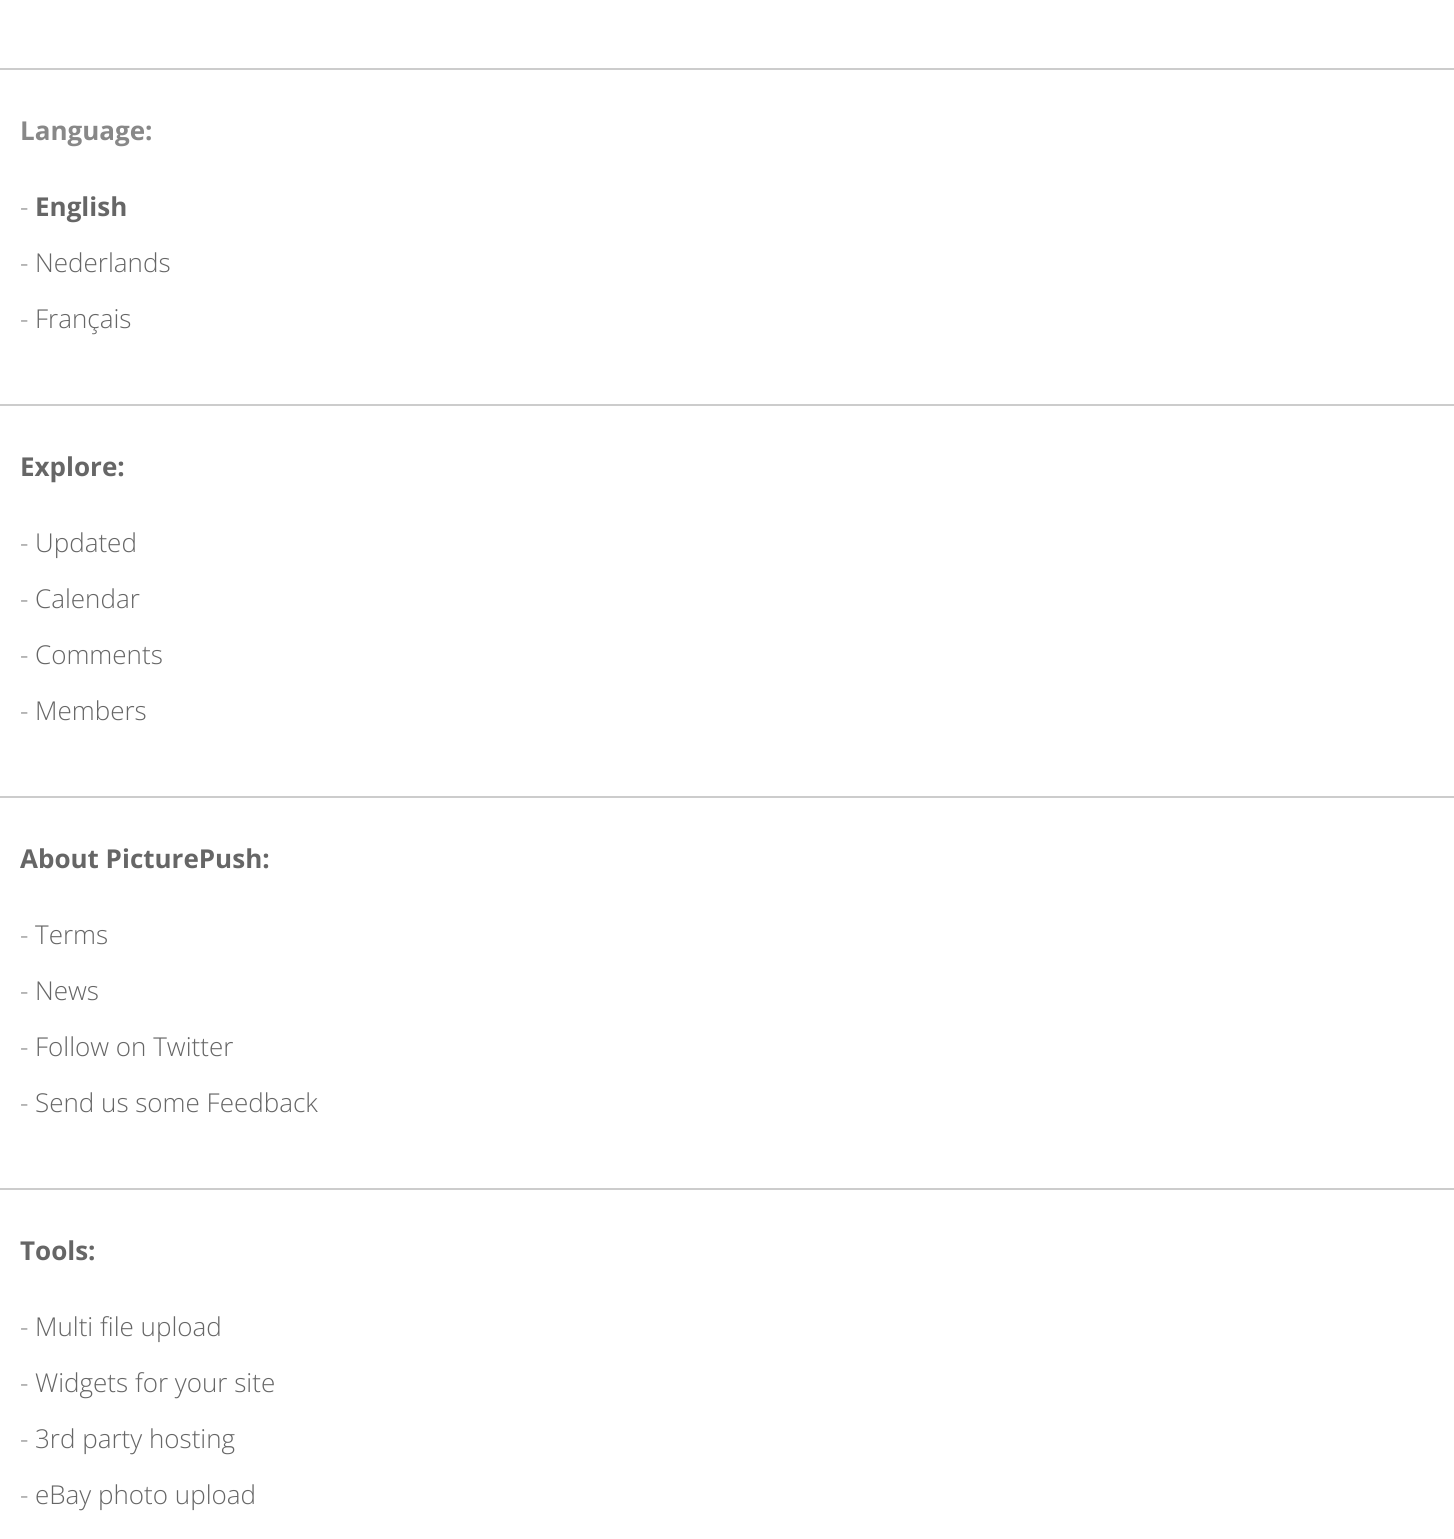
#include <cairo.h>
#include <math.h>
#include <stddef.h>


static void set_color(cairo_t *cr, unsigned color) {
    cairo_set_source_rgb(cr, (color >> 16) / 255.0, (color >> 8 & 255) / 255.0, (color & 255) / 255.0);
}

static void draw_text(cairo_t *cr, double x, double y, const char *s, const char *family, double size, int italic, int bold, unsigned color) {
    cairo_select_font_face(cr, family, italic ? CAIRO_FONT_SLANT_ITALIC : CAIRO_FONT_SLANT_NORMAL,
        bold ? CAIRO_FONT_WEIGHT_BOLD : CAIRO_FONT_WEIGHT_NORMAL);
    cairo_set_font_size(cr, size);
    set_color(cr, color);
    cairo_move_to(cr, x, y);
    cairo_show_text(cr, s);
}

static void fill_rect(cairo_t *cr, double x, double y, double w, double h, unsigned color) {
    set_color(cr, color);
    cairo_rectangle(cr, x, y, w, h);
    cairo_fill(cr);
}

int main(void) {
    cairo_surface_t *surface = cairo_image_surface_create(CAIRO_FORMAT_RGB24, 1454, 1539);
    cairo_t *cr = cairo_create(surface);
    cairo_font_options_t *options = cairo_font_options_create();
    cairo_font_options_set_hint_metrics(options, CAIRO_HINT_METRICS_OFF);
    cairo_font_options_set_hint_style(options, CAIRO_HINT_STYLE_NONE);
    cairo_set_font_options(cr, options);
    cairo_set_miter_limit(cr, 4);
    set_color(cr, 0xFFFFFF);
    cairo_paint(cr);
    fill_rect(cr, 0, 68, 1454, 2, 0xCCCCCC);
    draw_text(cr, 20, 140, "Language:", "Open Sans", 26, 0, 1, 0x888888);
    draw_text(cr, 20, 216, "-", "Open Sans Light", 26, 0, 0, 0x888888);
    draw_text(cr, 35, 216, "English", "Open Sans", 26, 0, 1, 0x666666);
    draw_text(cr, 20, 272, "-", "Open Sans Light", 26, 0, 0, 0x888888);
    draw_text(cr, 35, 272, "Nederlands", "Open Sans Light", 26, 0, 0, 0x666666);
    draw_text(cr, 20, 328, "-", "Open Sans Light", 26, 0, 0, 0x888888);
    draw_text(cr, 35, 328, "Français", "Open Sans Light", 26, 0, 0, 0x666666);
    fill_rect(cr, 0, 404, 1454, 2, 0xCCCCCC);
    draw_text(cr, 20, 476, "Explore:", "Open Sans", 26, 0, 1, 0x666666);
    draw_text(cr, 20, 552, "-", "Open Sans Light", 26, 0, 0, 0x888888);
    draw_text(cr, 35, 552, "Updated", "Open Sans Light", 26, 0, 0, 0x666666);
    draw_text(cr, 20, 608, "-", "Open Sans Light", 26, 0, 0, 0x888888);
    draw_text(cr, 35, 608, "Calendar", "Open Sans Light", 26, 0, 0, 0x666666);
    draw_text(cr, 20, 664, "-", "Open Sans Light", 26, 0, 0, 0x888888);
    draw_text(cr, 35, 664, "Comments", "Open Sans Light", 26, 0, 0, 0x666666);
    draw_text(cr, 20, 720, "-", "Open Sans Light", 26, 0, 0, 0x888888);
    draw_text(cr, 35, 720, "Members", "Open Sans Light", 26, 0, 0, 0x666666);
    fill_rect(cr, 0, 796, 1454, 2, 0xCCCCCC);
    draw_text(cr, 20, 868, "About PicturePush:", "Open Sans", 26, 0, 1, 0x666666);
    draw_text(cr, 20, 944, "-", "Open Sans Light", 26, 0, 0, 0x888888);
    draw_text(cr, 35, 944, "Terms", "Open Sans Light", 26, 0, 0, 0x666666);
    draw_text(cr, 20, 1000, "-", "Open Sans Light", 26, 0, 0, 0x888888);
    draw_text(cr, 35, 1000, "News", "Open Sans Light", 26, 0, 0, 0x666666);
    draw_text(cr, 20, 1056, "-", "Open Sans Light", 26, 0, 0, 0x888888);
    draw_text(cr, 35, 1056, "Follow on Twitter", "Open Sans Light", 26, 0, 0, 0x666666);
    draw_text(cr, 20, 1112, "-", "Open Sans Light", 26, 0, 0, 0x888888);
    draw_text(cr, 35, 1112, "Send us some Feedback", "Open Sans Light", 26, 0, 0, 0x666666);
    fill_rect(cr, 0, 1188, 1454, 2, 0xCCCCCC);
    draw_text(cr, 20, 1260, "Tools:", "Open Sans", 26, 0, 1, 0x666666);
    draw_text(cr, 20, 1336, "-", "Open Sans Light", 26, 0, 0, 0x888888);
    draw_text(cr, 35, 1336, "Multi file upload", "Open Sans Light", 26, 0, 0, 0x666666);
    draw_text(cr, 20, 1392, "-", "Open Sans Light", 26, 0, 0, 0x888888);
    draw_text(cr, 35, 1392, "Widgets for your site", "Open Sans Light", 26, 0, 0, 0x666666);
    draw_text(cr, 20, 1448, "-", "Open Sans Light", 26, 0, 0, 0x888888);
    draw_text(cr, 35, 1448, "3rd party hosting", "Open Sans Light", 26, 0, 0, 0x666666);
    draw_text(cr, 20, 1504, "-", "Open Sans Light", 26, 0, 0, 0x888888);
    draw_text(cr, 35, 1504, "eBay photo upload", "Open Sans Light", 26, 0, 0, 0x666666);
    cairo_surface_write_to_png(surface, "output.png");
    cairo_font_options_destroy(options);
    cairo_destroy(cr);
    cairo_surface_destroy(surface);
    return 0;
}
